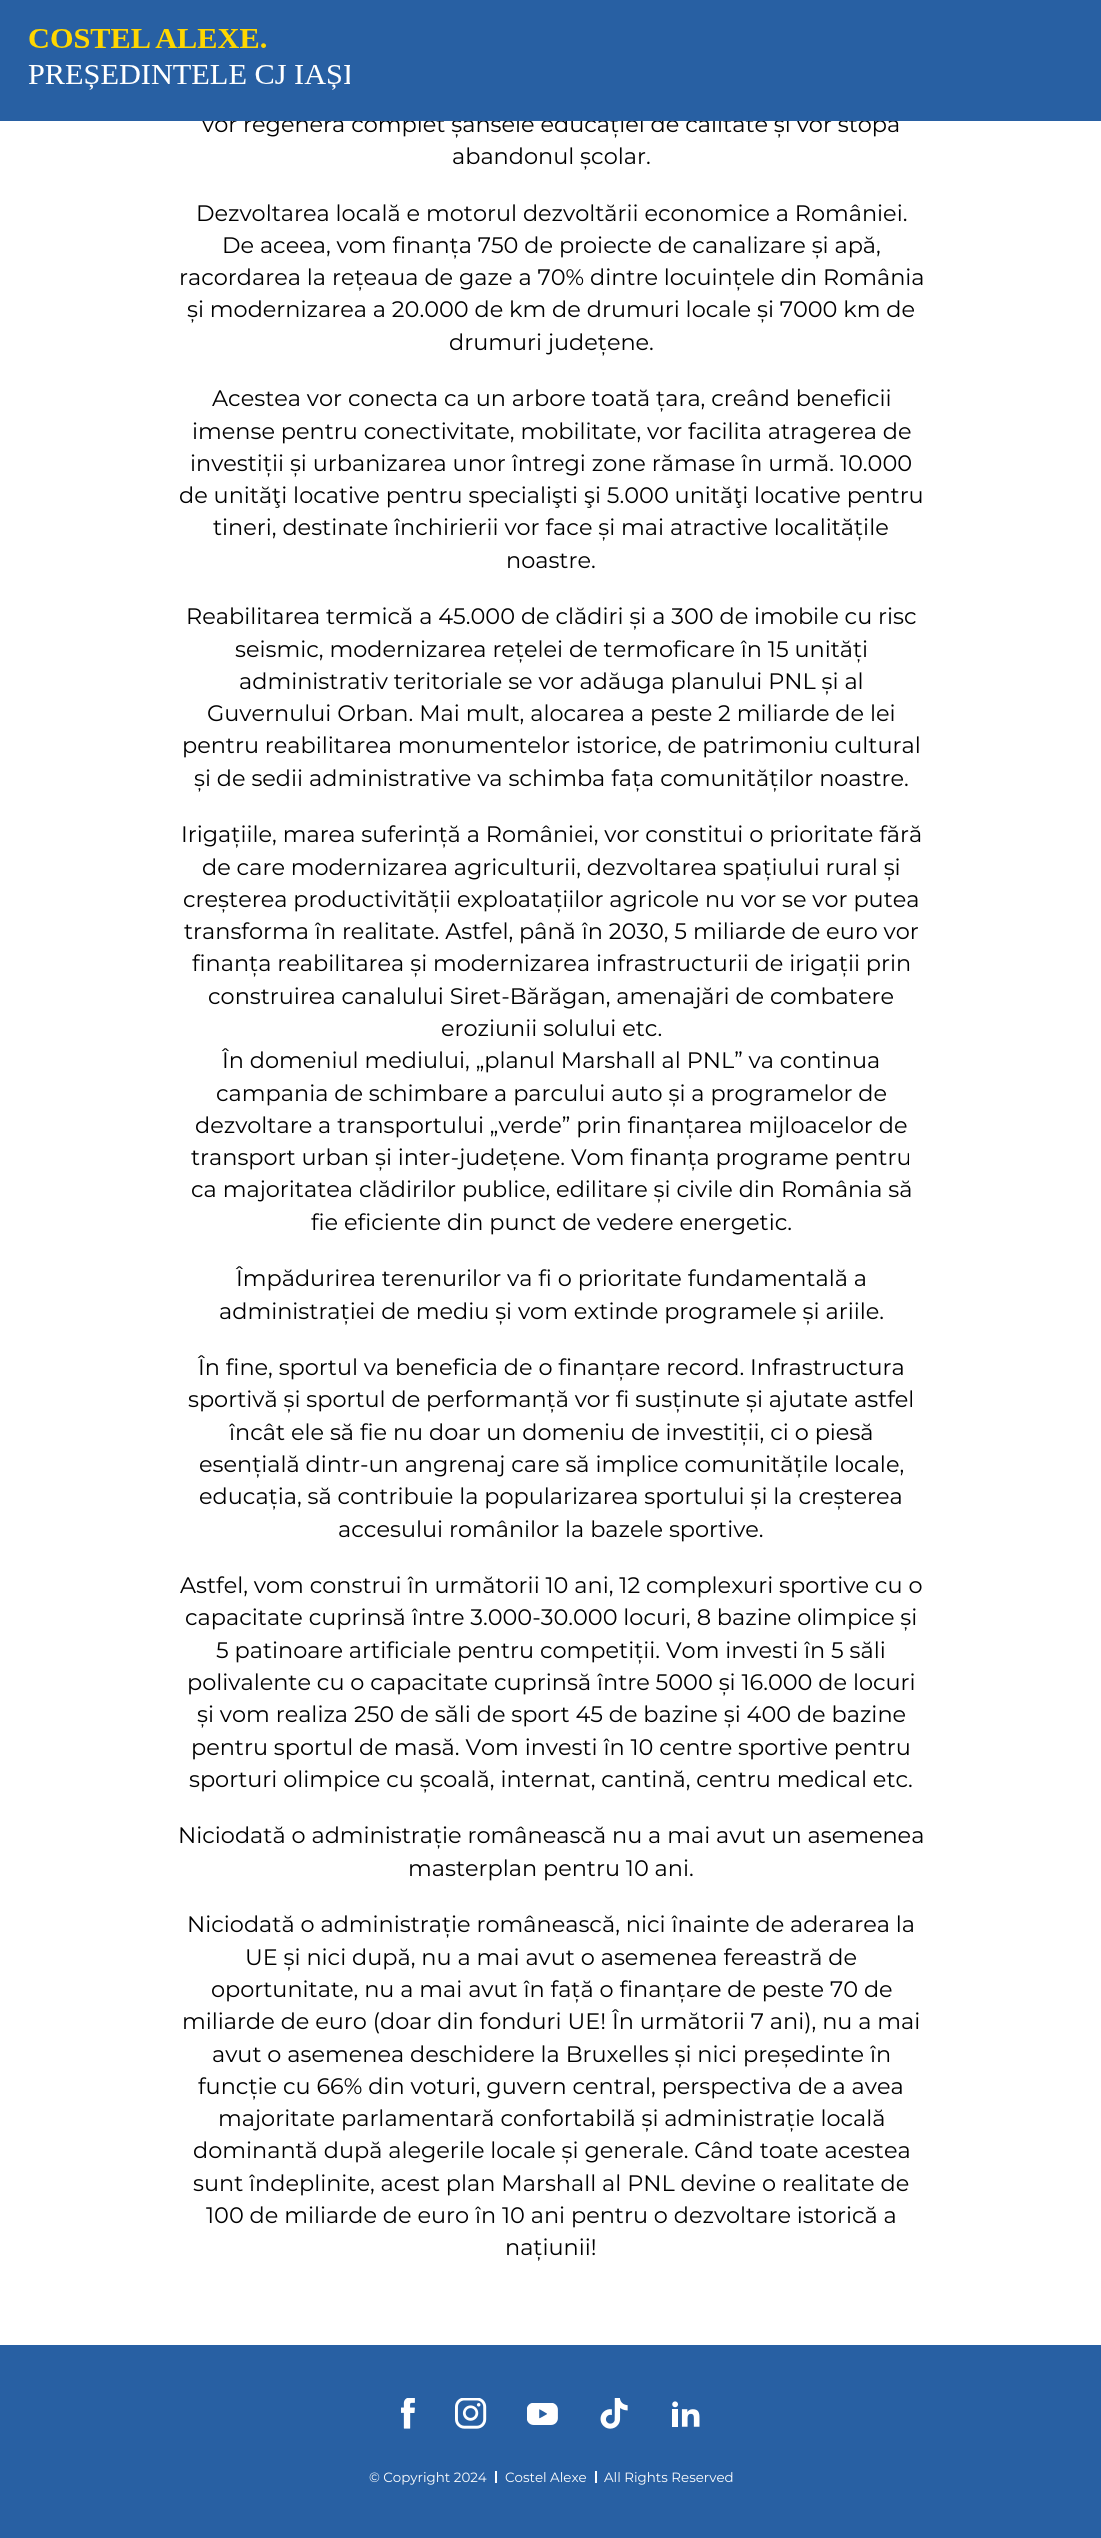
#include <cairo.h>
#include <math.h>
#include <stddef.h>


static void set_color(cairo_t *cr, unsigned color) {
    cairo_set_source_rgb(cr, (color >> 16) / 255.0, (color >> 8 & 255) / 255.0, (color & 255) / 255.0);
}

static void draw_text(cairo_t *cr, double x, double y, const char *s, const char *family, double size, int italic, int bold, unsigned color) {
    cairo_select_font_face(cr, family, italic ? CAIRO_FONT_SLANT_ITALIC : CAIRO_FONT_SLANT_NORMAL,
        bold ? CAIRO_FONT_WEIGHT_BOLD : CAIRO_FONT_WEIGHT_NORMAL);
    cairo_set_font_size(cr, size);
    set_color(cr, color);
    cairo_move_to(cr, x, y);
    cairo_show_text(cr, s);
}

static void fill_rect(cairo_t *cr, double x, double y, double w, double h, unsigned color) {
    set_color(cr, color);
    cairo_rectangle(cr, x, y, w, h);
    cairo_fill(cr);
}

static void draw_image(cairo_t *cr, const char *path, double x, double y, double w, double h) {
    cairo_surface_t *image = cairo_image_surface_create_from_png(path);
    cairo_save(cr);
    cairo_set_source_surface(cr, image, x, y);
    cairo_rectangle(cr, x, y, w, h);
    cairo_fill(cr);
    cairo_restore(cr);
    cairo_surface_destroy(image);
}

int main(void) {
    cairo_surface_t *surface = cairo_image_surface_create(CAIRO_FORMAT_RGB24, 1101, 2538);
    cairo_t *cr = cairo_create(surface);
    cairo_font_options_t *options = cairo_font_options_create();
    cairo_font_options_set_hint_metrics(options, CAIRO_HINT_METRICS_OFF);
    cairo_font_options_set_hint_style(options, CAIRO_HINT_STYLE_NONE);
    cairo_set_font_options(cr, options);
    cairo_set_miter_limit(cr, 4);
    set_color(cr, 0xFFFFFF);
    cairo_paint(cr);
    draw_text(cr, 202, 132, "vor regenera complet șansele educației de calitate și vor stopa", "Montserrat", 22.4, 0, 0, 0x000000);
    fill_rect(cr, 0, 0, 1101, 121, 0x2860A3);
    draw_image(cr, "assets/img1.png", 28, 29, 322, 61);
    draw_text(cr, 452, 164, "abandonul școlar.", "Montserrat", 22.4, 0, 0, 0x000000);
    draw_text(cr, 196, 221, "Dezvoltarea locală e motorul dezvoltării economice a României.", "Montserrat", 22.4, 0, 0, 0x000000);
    draw_text(cr, 222, 253, "De aceea, vom finanța 750 de proiecte de canalizare și apă,", "Montserrat", 22.4, 0, 0, 0x000000);
    draw_text(cr, 179, 285, "racordarea la rețeaua de gaze a 70% dintre locuințele din România", "Montserrat", 22.4, 0, 0, 0x000000);
    draw_text(cr, 187, 317, "și modernizarea a 20.000 de km de drumuri locale și 7000 km de", "Montserrat", 22.4, 0, 0, 0x000000);
    draw_text(cr, 449, 350, "drumuri județene.", "Montserrat", 22.4, 0, 0, 0x000000);
    draw_text(cr, 212, 406, "Acestea vor conecta ca un arbore toată țara, creând beneficii", "Montserrat", 22.4, 0, 0, 0x000000);
    draw_text(cr, 192, 439, "imense pentru conectivitate, mobilitate, vor facilita atragerea de", "Montserrat", 22.4, 0, 0, 0x000000);
    draw_text(cr, 190, 471, "investiții și urbanizarea unor întregi zone rămase în urmă. 10.000", "Montserrat", 22.4, 0, 0, 0x000000);
    draw_text(cr, 179, 503, "de unităţi locative pentru specialişti şi 5.000 unităţi locative pentru", "Montserrat", 22.4, 0, 0, 0x000000);
    draw_text(cr, 213, 535, "tineri, destinate închirierii vor face și mai atractive localitățile", "Montserrat", 22.4, 0, 0, 0x000000);
    draw_text(cr, 506, 568, "noastre.", "Montserrat", 22.4, 0, 0, 0x000000);
    draw_text(cr, 186, 624, "Reabilitarea termică a 45.000 de clădiri și a 300 de imobile cu risc", "Montserrat", 22.4, 0, 0, 0x000000);
    draw_text(cr, 235, 657, "seismic, modernizarea rețelei de termoficare în 15 unități", "Montserrat", 22.4, 0, 0, 0x000000);
    draw_text(cr, 239, 689, "administrativ teritoriale se vor adăuga planului PNL și al", "Montserrat", 22.4, 0, 0, 0x000000);
    draw_text(cr, 207, 721, "Guvernului Orban. Mai mult, alocarea a peste 2 miliarde de lei", "Montserrat", 22.4, 0, 0, 0x000000);
    draw_text(cr, 182, 753, "pentru reabilitarea monumentelor istorice, de patrimoniu cultural", "Montserrat", 22.4, 0, 0, 0x000000);
    draw_text(cr, 194, 786, "și de sedii administrative va schimba fața comunităților noastre.", "Montserrat", 22.4, 0, 0, 0x000000);
    draw_text(cr, 181, 842, "Irigațiile, marea suferință a României, vor constitui o prioritate fără", "Montserrat", 22.4, 0, 0, 0x000000);
    draw_text(cr, 202, 875, "de care modernizarea agriculturii, dezvoltarea spațiului rural și", "Montserrat", 22.4, 0, 0, 0x000000);
    draw_text(cr, 183, 907, "creșterea productivității exploatațiilor agricole nu vor se vor putea", "Montserrat", 22.4, 0, 0, 0x000000);
    draw_text(cr, 184, 939, "transforma în realitate. Astfel, până în 2030, 5 miliarde de euro vor", "Montserrat", 22.4, 0, 0, 0x000000);
    draw_text(cr, 192, 971, "finanța reabilitarea și modernizarea infrastructurii de irigații prin", "Montserrat", 22.4, 0, 0, 0x000000);
    draw_text(cr, 208, 1004, "construirea canalului Siret-Bărăgan, amenajări de combatere", "Montserrat", 22.4, 0, 0, 0x000000);
    draw_text(cr, 441, 1036, "eroziunii solului etc.", "Montserrat", 22.4, 0, 0, 0x000000);
    draw_text(cr, 222, 1068, "În domeniul mediului, „planul Marshall al PNL” va continua", "Montserrat", 22.4, 0, 0, 0x000000);
    draw_text(cr, 216, 1101, "campania de schimbare a parcului auto și a programelor de", "Montserrat", 22.4, 0, 0, 0x000000);
    draw_text(cr, 195, 1133, "dezvoltare a transportului „verde” prin finanțarea mijloacelor de", "Montserrat", 22.4, 0, 0, 0x000000);
    draw_text(cr, 191, 1165, "transport urban și inter-județene. Vom finanța programe pentru", "Montserrat", 22.4, 0, 0, 0x000000);
    draw_text(cr, 191, 1197, "ca majoritatea clădirilor publice, edilitare și civile din România să", "Montserrat", 22.4, 0, 0, 0x000000);
    draw_text(cr, 311, 1230, "fie eficiente din punct de vedere energetic.", "Montserrat", 22.4, 0, 0, 0x000000);
    draw_text(cr, 236, 1286, "Împădurirea terenurilor va fi o prioritate fundamentală a", "Montserrat", 22.4, 0, 0, 0x000000);
    draw_text(cr, 219, 1319, "administrației de mediu și vom extinde programele și ariile.", "Montserrat", 22.4, 0, 0, 0x000000);
    draw_text(cr, 198, 1375, "În fine, sportul va beneficia de o finanțare record. Infrastructura", "Montserrat", 22.4, 0, 0, 0x000000);
    draw_text(cr, 188, 1407, "sportivă și sportul de performanță vor fi susținute și ajutate astfel", "Montserrat", 22.4, 0, 0, 0x000000);
    draw_text(cr, 229, 1440, "încât ele să fie nu doar un domeniu de investiții, ci o piesă", "Montserrat", 22.4, 0, 0, 0x000000);
    draw_text(cr, 199, 1472, "esențială dintr-un angrenaj care să implice comunitățile locale,", "Montserrat", 22.4, 0, 0, 0x000000);
    draw_text(cr, 199, 1504, "educația, să contribuie la popularizarea sportului și la creșterea", "Montserrat", 22.4, 0, 0, 0x000000);
    draw_text(cr, 338, 1537, "accesului românilor la bazele sportive.", "Montserrat", 22.4, 0, 0, 0x000000);
    draw_text(cr, 180, 1593, "Astfel, vom construi în următorii 10 ani, 12 complexuri sportive cu o", "Montserrat", 22.4, 0, 0, 0x000000);
    draw_text(cr, 185, 1625, "capacitate cuprinsă între 3.000-30.000 locuri, 8 bazine olimpice și", "Montserrat", 22.4, 0, 0, 0x000000);
    draw_text(cr, 216, 1658, "5 patinoare artificiale pentru competiții. Vom investi în 5 săli", "Montserrat", 22.4, 0, 0, 0x000000);
    draw_text(cr, 187, 1690, "polivalente cu o capacitate cuprinsă între 5000 și 16.000 de locuri", "Montserrat", 22.4, 0, 0, 0x000000);
    draw_text(cr, 197, 1722, "și vom realiza 250 de săli de sport 45 de bazine și 400 de bazine", "Montserrat", 22.4, 0, 0, 0x000000);
    draw_text(cr, 191, 1755, "pentru sportul de masă. Vom investi în 10 centre sportive pentru", "Montserrat", 22.4, 0, 0, 0x000000);
    draw_text(cr, 189, 1787, "sporturi olimpice cu școală, internat, cantină, centru medical etc.", "Montserrat", 22.4, 0, 0, 0x000000);
    draw_text(cr, 178, 1843, "Niciodată o administrație românească nu a mai avut un asemenea", "Montserrat", 22.4, 0, 0, 0x000000);
    draw_text(cr, 408, 1876, "masterplan pentru 10 ani.", "Montserrat", 22.4, 0, 0, 0x000000);
    draw_text(cr, 187, 1932, "Niciodată o administrație românească, nici înainte de aderarea la", "Montserrat", 22.4, 0, 0, 0x000000);
    draw_text(cr, 245, 1965, "UE și nici după, nu a mai avut o asemenea fereastră de", "Montserrat", 22.4, 0, 0, 0x000000);
    draw_text(cr, 211, 1997, "oportunitate, nu a mai avut în față o finanțare de peste 70 de", "Montserrat", 22.4, 0, 0, 0x000000);
    draw_text(cr, 182, 2029, "miliarde de euro (doar din fonduri UE! În următorii 7 ani), nu a mai", "Montserrat", 22.4, 0, 0, 0x000000);
    draw_text(cr, 212, 2062, "avut o asemenea deschidere la Bruxelles și nici președinte în", "Montserrat", 22.4, 0, 0, 0x000000);
    draw_text(cr, 198, 2094, "funcție cu 66% din voturi, guvern central, perspectiva de a avea", "Montserrat", 22.4, 0, 0, 0x000000);
    draw_text(cr, 218, 2126, "majoritate parlamentară confortabilă și administrație locală", "Montserrat", 22.4, 0, 0, 0x000000);
    draw_text(cr, 193, 2158, "dominantă după alegerile locale și generale. Când toate acestea", "Montserrat", 22.4, 0, 0, 0x000000);
    draw_text(cr, 193, 2191, "sunt îndeplinite, acest plan Marshall al PNL devine o realitate de", "Montserrat", 22.4, 0, 0, 0x000000);
    draw_text(cr, 206, 2223, "100 de miliarde de euro în 10 ani pentru o dezvoltare istorică a", "Montserrat", 22.4, 0, 0, 0x000000);
    draw_text(cr, 505, 2255, "națiunii!", "Montserrat", 22.4, 0, 0, 0x000000);
    fill_rect(cr, 0, 2345, 1101, 193, 0x2860A3);
    draw_image(cr, "assets/img2.png", 401, 2398, 14, 31);
    draw_image(cr, "assets/img3.png", 455, 2398, 32, 31);
    draw_image(cr, "assets/img4.png", 527, 2403, 31, 22);
    draw_image(cr, "assets/img5.png", 600, 2398, 28, 31);
    draw_image(cr, "assets/img6.png", 672, 2401, 28, 26);
    draw_text(cr, 369, 2482, "© Copyright 2024", "Montserrat", 13.4, 0, 0, 0xFFFFFF);
    fill_rect(cr, 495, 2471, 2, 12, 0xFFFFFF);
    draw_text(cr, 505, 2482, "Costel Alexe", "Montserrat", 13.4, 0, 0, 0xFFFFFF);
    fill_rect(cr, 595, 2471, 2, 12, 0xFFFFFF);
    draw_text(cr, 604, 2482, "All Rights Reserved", "Montserrat", 13.4, 0, 0, 0xFFFFFF);
    cairo_surface_write_to_png(surface, "output.png");
    cairo_font_options_destroy(options);
    cairo_destroy(cr);
    cairo_surface_destroy(surface);
    return 0;
}
